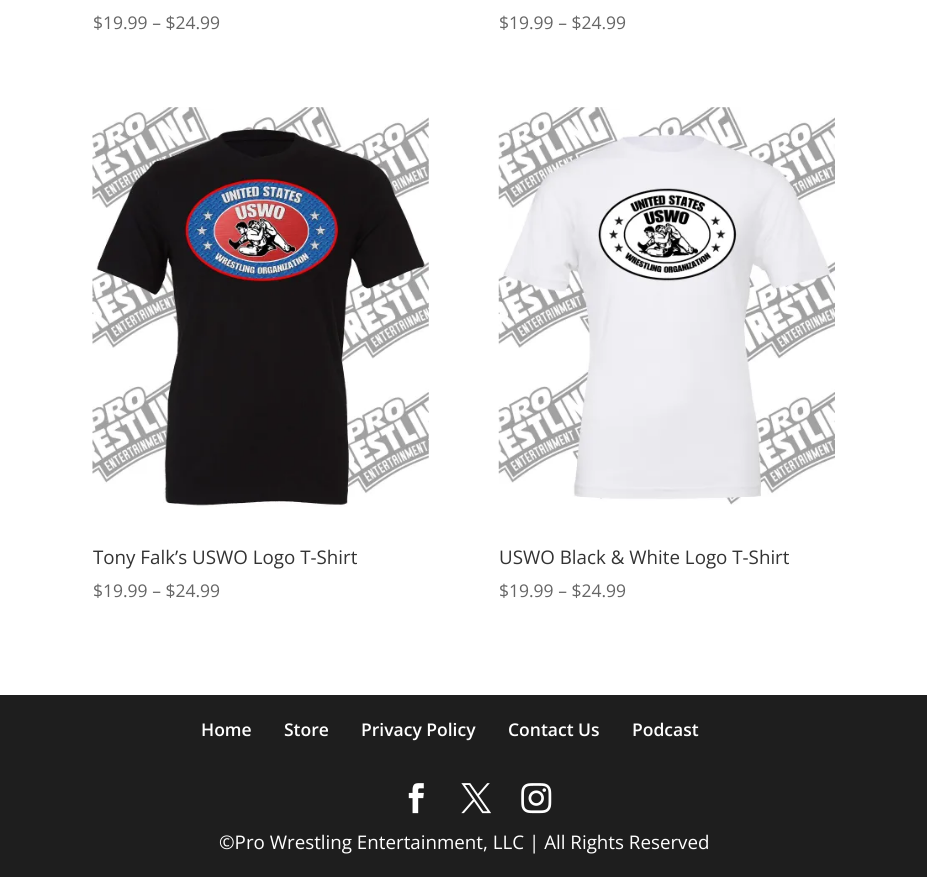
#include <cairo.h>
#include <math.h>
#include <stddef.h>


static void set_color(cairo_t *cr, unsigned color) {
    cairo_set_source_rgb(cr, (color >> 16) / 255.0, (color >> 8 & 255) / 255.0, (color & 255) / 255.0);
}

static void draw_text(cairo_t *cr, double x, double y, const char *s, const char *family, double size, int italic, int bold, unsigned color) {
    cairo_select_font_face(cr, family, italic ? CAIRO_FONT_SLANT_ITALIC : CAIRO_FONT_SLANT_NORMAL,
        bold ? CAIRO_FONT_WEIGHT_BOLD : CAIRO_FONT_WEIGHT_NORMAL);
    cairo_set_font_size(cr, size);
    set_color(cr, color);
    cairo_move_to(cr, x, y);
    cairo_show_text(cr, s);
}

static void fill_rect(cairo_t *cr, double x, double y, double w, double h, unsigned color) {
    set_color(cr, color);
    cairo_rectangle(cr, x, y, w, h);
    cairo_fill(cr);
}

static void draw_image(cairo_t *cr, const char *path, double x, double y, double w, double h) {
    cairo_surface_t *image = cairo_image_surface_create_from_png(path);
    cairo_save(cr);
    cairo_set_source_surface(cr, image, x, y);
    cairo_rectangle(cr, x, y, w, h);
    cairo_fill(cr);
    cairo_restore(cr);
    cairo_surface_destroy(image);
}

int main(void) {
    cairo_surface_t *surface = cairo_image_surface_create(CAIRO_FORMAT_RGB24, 927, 877);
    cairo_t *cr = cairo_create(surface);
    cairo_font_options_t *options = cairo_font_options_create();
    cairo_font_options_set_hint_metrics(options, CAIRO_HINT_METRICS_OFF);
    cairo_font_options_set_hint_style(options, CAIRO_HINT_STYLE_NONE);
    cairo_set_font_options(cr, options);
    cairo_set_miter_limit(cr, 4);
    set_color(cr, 0xFFFFFF);
    cairo_paint(cr);
    draw_text(cr, 93, 29, "$19.99 – $24.99", "Open Sans", 17.5, 0, 0, 0x666666);
    draw_text(cr, 499, 29, "$19.99 – $24.99", "Open Sans", 17.5, 0, 0, 0x666666);
    draw_image(cr, "assets/img1.png", 92, 107, 337, 400);
    draw_text(cr, 93, 564, "Tony Falk’s USWO Logo T-Shirt", "Open Sans", 18.75, 0, 0, 0x333333);
    draw_text(cr, 93, 597, "$19.99 – $24.99", "Open Sans", 17.5, 0, 0, 0x666666);
    draw_image(cr, "assets/img2.png", 498, 107, 337, 398);
    draw_text(cr, 499, 564, "USWO Black & White Logo T-Shirt", "Open Sans", 18.75, 0, 0, 0x333333);
    draw_text(cr, 499, 597, "$19.99 – $24.99", "Open Sans", 17.5, 0, 0, 0x666666);
    fill_rect(cr, 0, 695, 927, 182, 0x1E1E1E);
    draw_text(cr, 201, 736, "Home", "Open Sans SemiBold", 17.5, 0, 0, 0xFFFFFF);
    draw_text(cr, 284, 736, "Store", "Open Sans SemiBold", 17.5, 0, 0, 0xFFFFFF);
    draw_text(cr, 361, 736, "Privacy Policy", "Open Sans SemiBold", 17.5, 0, 0, 0xFFFFFF);
    draw_text(cr, 508, 736, "Contact Us", "Open Sans SemiBold", 17.5, 0, 0, 0xFFFFFF);
    draw_text(cr, 632, 736, "Podcast", "Open Sans SemiBold", 17.5, 0, 0, 0xFFFFFF);
    draw_image(cr, "assets/img3.png", 408, 783, 16, 31);
    draw_image(cr, "assets/img4.png", 461, 783, 30, 31);
    draw_image(cr, "assets/img5.png", 521, 783, 31, 31);
    draw_text(cr, 219, 849, "©Pro Wrestling Entertainment, LLC | All Rights Reserved", "Open Sans", 18.75, 0, 0, 0xFFFFFF);
    cairo_surface_write_to_png(surface, "output.png");
    cairo_font_options_destroy(options);
    cairo_destroy(cr);
    cairo_surface_destroy(surface);
    return 0;
}
